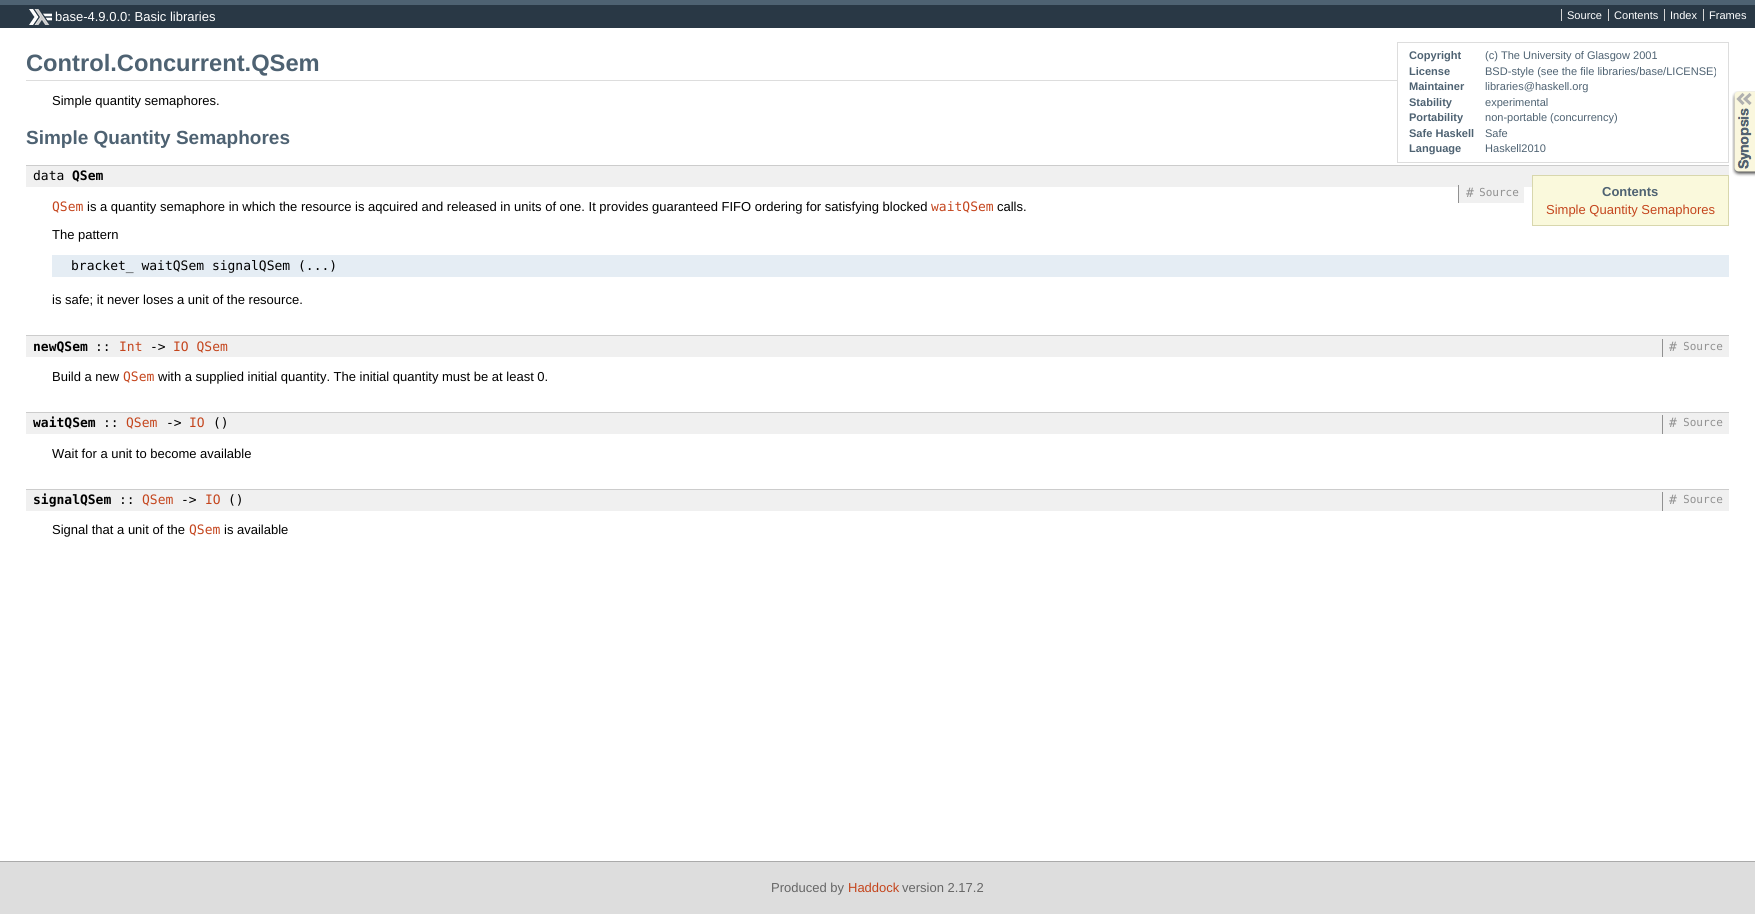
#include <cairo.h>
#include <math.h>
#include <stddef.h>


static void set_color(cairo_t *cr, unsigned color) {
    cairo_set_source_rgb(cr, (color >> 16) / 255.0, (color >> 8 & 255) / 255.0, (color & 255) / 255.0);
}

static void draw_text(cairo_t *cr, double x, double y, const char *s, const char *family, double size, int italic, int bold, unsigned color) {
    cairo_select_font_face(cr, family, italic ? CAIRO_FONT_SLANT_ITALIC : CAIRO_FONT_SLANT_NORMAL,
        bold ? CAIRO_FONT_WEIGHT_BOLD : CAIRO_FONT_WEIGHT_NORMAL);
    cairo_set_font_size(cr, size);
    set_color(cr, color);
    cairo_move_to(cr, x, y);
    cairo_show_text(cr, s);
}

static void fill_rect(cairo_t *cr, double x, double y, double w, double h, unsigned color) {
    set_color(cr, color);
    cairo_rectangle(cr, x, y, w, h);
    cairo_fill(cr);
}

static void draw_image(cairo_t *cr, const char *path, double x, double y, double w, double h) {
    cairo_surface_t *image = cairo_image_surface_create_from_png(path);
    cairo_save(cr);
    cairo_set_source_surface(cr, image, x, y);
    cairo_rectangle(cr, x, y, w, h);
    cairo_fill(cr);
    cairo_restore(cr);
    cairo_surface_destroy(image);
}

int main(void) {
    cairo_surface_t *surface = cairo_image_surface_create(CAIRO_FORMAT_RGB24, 1755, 914);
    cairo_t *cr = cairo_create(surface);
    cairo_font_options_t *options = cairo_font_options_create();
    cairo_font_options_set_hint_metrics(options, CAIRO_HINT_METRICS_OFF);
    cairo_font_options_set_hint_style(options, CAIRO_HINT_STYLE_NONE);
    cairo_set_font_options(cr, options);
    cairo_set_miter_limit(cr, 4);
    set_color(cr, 0xFFFFFF);
    cairo_paint(cr);
    fill_rect(cr, 0, 5, 1755, 23, 0x293845);
    fill_rect(cr, 0, 0, 1755, 5, 0x4E6272);
    draw_image(cr, "assets/img1.png", 29, 9, 23, 16);
    draw_text(cr, 55, 21, "base-4.9.0.0: Basic libraries", "Liberation Sans", 13, 0, 0, 0xFFFFFF);
    draw_text(cr, 1567, 19, "Source", "Liberation Sans", 11.05, 0, 0, 0xFFFFFF);
    fill_rect(cr, 1561, 9, 1, 12, 0xD5D5D5);
    draw_text(cr, 1614, 19, "Contents", "Liberation Sans", 11.05, 0, 0, 0xFFFFFF);
    fill_rect(cr, 1608, 9, 1, 12, 0xD5D5D5);
    draw_text(cr, 1670, 19, "Index", "Liberation Sans", 11.05, 0, 0, 0xFFFFFF);
    fill_rect(cr, 1664, 9, 1, 12, 0xD5D5D5);
    draw_text(cr, 1709, 19, "Frames", "Liberation Sans", 11.05, 0, 0, 0xFFFFFF);
    fill_rect(cr, 1703, 9, 1, 12, 0xD5D5D5);
    fill_rect(cr, 26, 80, 1371, 1, 0xDDDDDD);
    draw_text(cr, 26, 71, "Control.Concurrent.QSem", "Liberation Sans", 23.7, 0, 1, 0x4E6272);
    cairo_rectangle(cr, 1397.5, 42.5, 331, 120);
    set_color(cr, 0xDDDDDD);
    cairo_set_line_width(cr, 1);
    cairo_stroke(cr);
    draw_text(cr, 1409, 59, "Copyright", "Liberation Sans", 11.05, 0, 1, 0x4E6272);
    draw_text(cr, 1485, 59, "(c) The University of Glasgow 2001", "Liberation Sans", 11.05, 0, 0, 0x4E6272);
    draw_text(cr, 1409, 75, "License", "Liberation Sans", 11.05, 0, 1, 0x4E6272);
    draw_text(cr, 1485, 75, "BSD-style (see the file libraries/base/LICENSE)", "Liberation Sans", 11.05, 0, 0, 0x4E6272);
    draw_text(cr, 1409, 90, "Maintainer", "Liberation Sans", 11.05, 0, 1, 0x4E6272);
    draw_text(cr, 1485, 90, "libraries@haskell.org", "Liberation Sans", 11.05, 0, 0, 0x4E6272);
    draw_text(cr, 1409, 106, "Stability", "Liberation Sans", 11.05, 0, 1, 0x4E6272);
    draw_text(cr, 1485, 106, "experimental", "Liberation Sans", 11.05, 0, 0, 0x4E6272);
    draw_text(cr, 1409, 121, "Portability", "Liberation Sans", 11.05, 0, 1, 0x4E6272);
    draw_text(cr, 1485, 121, "non-portable (concurrency)", "Liberation Sans", 11.05, 0, 0, 0x4E6272);
    draw_text(cr, 1409, 137, "Safe Haskell", "Liberation Sans", 11.05, 0, 1, 0x4E6272);
    draw_text(cr, 1485, 137, "Safe", "Liberation Sans", 11.05, 0, 0, 0x4E6272);
    draw_text(cr, 1409, 152, "Language", "Liberation Sans", 11.05, 0, 1, 0x4E6272);
    draw_text(cr, 1485, 152, "Haskell2010", "Liberation Sans", 11.05, 0, 0, 0x4E6272);
    draw_image(cr, "assets/img2.png", 1732, 91, 23, 86);
    draw_text(cr, 52, 105, "Simple quantity semaphores.", "Liberation Sans", 13, 0, 0, 0x000000);
    draw_text(cr, 26, 144, "Simple Quantity Semaphores", "Liberation Sans", 19, 0, 1, 0x4E6272);
    fill_rect(cr, 26, 166, 1703, 21, 0xF0F0F0);
    fill_rect(cr, 26, 165, 1703, 1, 0xCCCCCC);
    draw_text(cr, 33, 180, "data", "DejaVu Sans Mono", 13, 0, 0, 0x000000);
    draw_text(cr, 72, 180, "QSem", "DejaVu Sans Mono", 13, 0, 1, 0x000000);
    fill_rect(cr, 1480, 187, 44, 16, 0xF0F0F0);
    draw_text(cr, 1479, 196, "Source", "DejaVu Sans Mono", 11.05, 0, 0, 0x919191);
    fill_rect(cr, 1459, 187, 21, 16, 0xF0F0F0);
    fill_rect(cr, 1458, 185, 1, 18, 0x919191);
    draw_text(cr, 1466, 197, "#", "DejaVu Sans Mono", 13, 0, 0, 0x919191);
    draw_text(cr, 52, 211, "QSem", "DejaVu Sans Mono", 13, 0, 0, 0xC4451D);
    draw_text(cr, 87, 211, "is a quantity semaphore in which the resource is aqcuired and released in units of one. It provides guaranteed FIFO ordering for satisfying blocked", "Liberation Sans", 13, 0, 0, 0x000000);
    draw_text(cr, 931, 211, "waitQSem", "DejaVu Sans Mono", 13, 0, 0, 0xC4451D);
    draw_text(cr, 997, 211, "calls.", "Liberation Sans", 13, 0, 0, 0x000000);
    draw_text(cr, 52, 239, "The pattern", "Liberation Sans", 13, 0, 0, 0x000000);
    fill_rect(cr, 52, 255, 1677, 22, 0xE5EDF4);
    draw_text(cr, 71, 270, "bracket_ waitQSem signalQSem (...)", "DejaVu Sans Mono", 13, 0, 0, 0x000000);
    draw_text(cr, 52, 304, "is safe; it never loses a unit of the resource.", "Liberation Sans", 13, 0, 0, 0x000000);
    fill_rect(cr, 26, 336, 1703, 21, 0xF0F0F0);
    fill_rect(cr, 26, 335, 1703, 1, 0xCCCCCC);
    draw_text(cr, 33, 351, "newQSem", "DejaVu Sans Mono", 13, 0, 1, 0x000000);
    draw_text(cr, 95, 351, "::", "DejaVu Sans Mono", 13, 0, 0, 0x000000);
    draw_text(cr, 119, 351, "Int", "DejaVu Sans Mono", 13, 0, 0, 0xC4451D);
    draw_text(cr, 150, 351, "->", "DejaVu Sans Mono", 13, 0, 0, 0x000000);
    draw_text(cr, 173, 351, "IO QSem", "DejaVu Sans Mono", 13, 0, 0, 0xC4451D);
    draw_text(cr, 1683, 350, "Source", "DejaVu Sans Mono", 11.05, 0, 0, 0x919191);
    fill_rect(cr, 1683, 342, 1, 8, 0xF0F0F0);
    fill_rect(cr, 1662, 339, 1, 18, 0x919191);
    draw_text(cr, 1669, 351, "#", "DejaVu Sans Mono", 13, 0, 0, 0x919191);
    draw_text(cr, 52, 381, "Build a new", "Liberation Sans", 13, 0, 0, 0x000000);
    draw_text(cr, 123, 381, "QSem", "DejaVu Sans Mono", 13, 0, 0, 0xC4451D);
    draw_text(cr, 158, 381, "with a supplied initial quantity. The initial quantity must be at least 0.", "Liberation Sans", 13, 0, 0, 0x000000);
    fill_rect(cr, 26, 413, 1703, 21, 0xF0F0F0);
    fill_rect(cr, 26, 412, 1703, 1, 0xCCCCCC);
    draw_text(cr, 33, 427, "waitQSem", "DejaVu Sans Mono", 13, 0, 1, 0x000000);
    draw_text(cr, 103, 427, "::", "DejaVu Sans Mono", 13, 0, 0, 0x000000);
    draw_text(cr, 126, 427, "QSem", "DejaVu Sans Mono", 13, 0, 0, 0xC4451D);
    draw_text(cr, 166, 427, "->", "DejaVu Sans Mono", 13, 0, 0, 0x000000);
    draw_text(cr, 189, 427, "IO", "DejaVu Sans Mono", 13, 0, 0, 0xC4451D);
    draw_text(cr, 213, 427, "()", "DejaVu Sans Mono", 13, 0, 0, 0x000000);
    draw_text(cr, 1683, 426, "Source", "DejaVu Sans Mono", 11.05, 0, 0, 0x919191);
    fill_rect(cr, 1683, 418, 1, 8, 0xF0F0F0);
    fill_rect(cr, 1662, 415, 1, 19, 0x919191);
    draw_text(cr, 1669, 427, "#", "DejaVu Sans Mono", 13, 0, 0, 0x919191);
    draw_text(cr, 52, 458, "Wait for a unit to become available", "Liberation Sans", 13, 0, 0, 0x000000);
    fill_rect(cr, 26, 490, 1703, 21, 0xF0F0F0);
    fill_rect(cr, 26, 489, 1703, 1, 0xCCCCCC);
    draw_text(cr, 33, 504, "signalQSem", "DejaVu Sans Mono", 13, 0, 1, 0x000000);
    draw_text(cr, 119, 504, "::", "DejaVu Sans Mono", 13, 0, 0, 0x000000);
    draw_text(cr, 142, 504, "QSem", "DejaVu Sans Mono", 13, 0, 0, 0xC4451D);
    draw_text(cr, 181, 504, "->", "DejaVu Sans Mono", 13, 0, 0, 0x000000);
    draw_text(cr, 205, 504, "IO", "DejaVu Sans Mono", 13, 0, 0, 0xC4451D);
    draw_text(cr, 228, 504, "()", "DejaVu Sans Mono", 13, 0, 0, 0x000000);
    draw_text(cr, 1683, 503, "Source", "DejaVu Sans Mono", 11.05, 0, 0, 0x919191);
    fill_rect(cr, 1683, 495, 1, 8, 0xF0F0F0);
    fill_rect(cr, 1662, 492, 1, 19, 0x919191);
    draw_text(cr, 1669, 504, "#", "DejaVu Sans Mono", 13, 0, 0, 0x919191);
    draw_text(cr, 52, 534, "Signal that a unit of the", "Liberation Sans", 13, 0, 0, 0x000000);
    draw_text(cr, 189, 534, "QSem", "DejaVu Sans Mono", 13, 0, 0, 0xC4451D);
    draw_text(cr, 224, 534, "is available", "Liberation Sans", 13, 0, 0, 0x000000);
    set_color(cr, 0xFAF9DC);
    cairo_rectangle(cr, 1532.5, 175.5, 196, 50);
    cairo_fill_preserve(cr);
    set_color(cr, 0xD8D7AD);
    cairo_stroke(cr);
    draw_text(cr, 1602, 196, "Contents", "Liberation Sans", 13, 0, 1, 0x4E6272);
    draw_text(cr, 1546, 214, "Simple Quantity Semaphores", "Liberation Sans", 13, 0, 0, 0xC4451D);
    fill_rect(cr, 0, 862, 1755, 52, 0xDDDDDD);
    fill_rect(cr, 0, 861, 1755, 1, 0xAAAAAA);
    draw_text(cr, 771, 892, "Produced by", "Liberation Sans", 13, 0, 0, 0x666666);
    draw_text(cr, 848, 892, "Haddock", "Liberation Sans", 13, 0, 0, 0xC4451D);
    draw_text(cr, 902, 892, "version 2.17.2", "Liberation Sans", 13, 0, 0, 0x666666);
    cairo_surface_write_to_png(surface, "output.png");
    cairo_font_options_destroy(options);
    cairo_destroy(cr);
    cairo_surface_destroy(surface);
    return 0;
}
